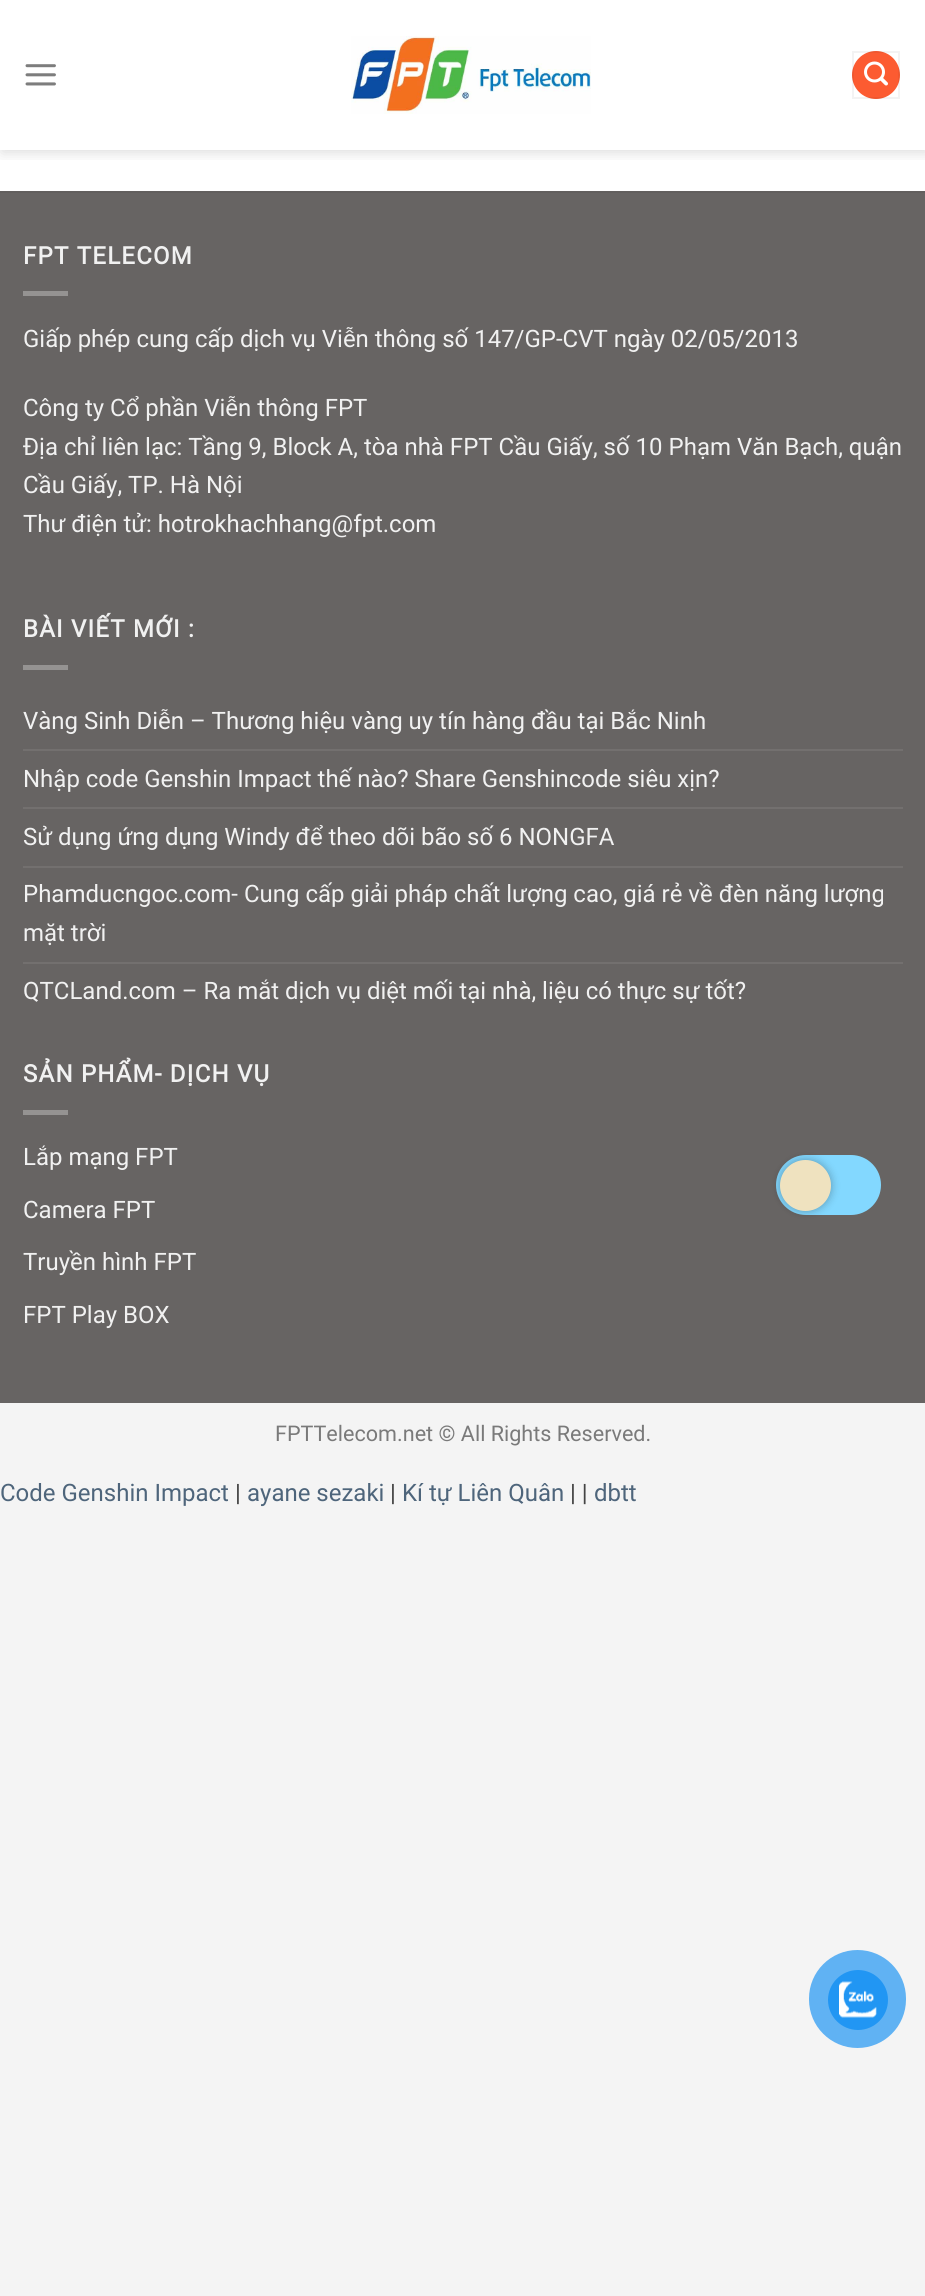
#include <cairo.h>
#include <math.h>
#include <stddef.h>


static void set_color(cairo_t *cr, unsigned color) {
    cairo_set_source_rgb(cr, (color >> 16) / 255.0, (color >> 8 & 255) / 255.0, (color & 255) / 255.0);
}

static void draw_text(cairo_t *cr, double x, double y, const char *s, const char *family, double size, int italic, int bold, unsigned color) {
    cairo_select_font_face(cr, family, italic ? CAIRO_FONT_SLANT_ITALIC : CAIRO_FONT_SLANT_NORMAL,
        bold ? CAIRO_FONT_WEIGHT_BOLD : CAIRO_FONT_WEIGHT_NORMAL);
    cairo_set_font_size(cr, size);
    set_color(cr, color);
    cairo_move_to(cr, x, y);
    cairo_show_text(cr, s);
}

static void draw_spaced(cairo_t *cr, double x, double y, const char *s, double letter, double word) {
    cairo_move_to(cr, x, y);
    while (*s) {
        char ch[5] = {0};
        int n = 0;
        do ch[n++] = *s++; while ((*s & 0xC0) == 0x80);
        cairo_show_text(cr, ch);
        cairo_rel_move_to(cr, letter + word * (*ch == ' '), 0);
    }
}

static void fill_rect(cairo_t *cr, double x, double y, double w, double h, unsigned color) {
    set_color(cr, color);
    cairo_rectangle(cr, x, y, w, h);
    cairo_fill(cr);
}

static void rounded_rect(cairo_t *cr, double x, double y, double w, double h, double r) {
    cairo_new_sub_path(cr);
    cairo_arc(cr, x + w - r, y + h - r, r, 0, M_PI / 2);
    cairo_arc(cr, x + r, y + h - r, r, M_PI / 2, M_PI);
    cairo_arc(cr, x + r, y + r, r, M_PI, 1.5 * M_PI);
    cairo_arc(cr, x + w - r, y + r, r, 1.5 * M_PI, 2 * M_PI);
    cairo_close_path(cr);
}

static void draw_shadow(cairo_t *cr, double x, double y, double w, double h, double r, double blur, double alpha) {
    cairo_push_group_with_content(cr, CAIRO_CONTENT_ALPHA);
    cairo_set_operator(cr, CAIRO_OPERATOR_SOURCE);
    for (int i = 15; i >= -15 && fmin(w, h) + blur * i / 3 > 0; i -= 2) {
        double e = blur * i / 6;
        cairo_set_source_rgba(cr, 0, 0, 0, alpha * erfc((i - 1) / 8.5) / 2);
        rounded_rect(cr, x - e, y - e, w + 2 * e, h + 2 * e, fmax(0, fmin(r + e + blur * .6, fmin(w, h) / 2 + e)));
        cairo_fill(cr);
    }
    cairo_pattern_t *soft = cairo_pop_group(cr);
    cairo_mask(cr, soft);
    cairo_pattern_destroy(soft);
}

static void draw_image(cairo_t *cr, const char *path, double x, double y, double w, double h) {
    cairo_surface_t *image = cairo_image_surface_create_from_png(path);
    cairo_save(cr);
    cairo_set_source_surface(cr, image, x, y);
    cairo_rectangle(cr, x, y, w, h);
    cairo_fill(cr);
    cairo_restore(cr);
    cairo_surface_destroy(image);
}

int main(void) {
    cairo_surface_t *surface = cairo_image_surface_create(CAIRO_FORMAT_RGB24, 925, 2296);
    cairo_t *cr = cairo_create(surface);
    cairo_font_options_t *options = cairo_font_options_create();
    cairo_font_options_set_hint_metrics(options, CAIRO_HINT_METRICS_OFF);
    cairo_font_options_set_hint_style(options, CAIRO_HINT_STYLE_NONE);
    cairo_set_font_options(cr, options);
    cairo_set_miter_limit(cr, 4);
    set_color(cr, 0xF4F4F4);
    cairo_paint(cr);
    fill_rect(cr, 0, 0, 925, 191, 0xFFFFFF);
    cairo_save(cr);
    cairo_rectangle(cr, 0, 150, 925, 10);
    cairo_clip(cr);
    set_color(cr, 0x000000);
    draw_shadow(cr, 2, 2, 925, 150, 0, 7.5, 0.15);
    cairo_restore(cr);
    draw_image(cr, "assets/img1.png", 25, 64, 31, 22);
    draw_image(cr, "assets/img2.png", 351, 36, 240, 78);
    set_color(cr, 0xFC5B31);
    cairo_arc(cr, 876, 75, 24, 0, 2 * M_PI);
    cairo_fill(cr);
    cairo_rectangle(cr, 853, 52, 46, 46);
    cairo_set_source_rgba(cr, 0, 0, 0, 0.05);
    cairo_stroke(cr);
    draw_image(cr, "assets/img3.png", 864, 61, 24, 25);
    fill_rect(cr, 0, 193, 925, 1210, 0x676463);
    fill_rect(cr, 0, 191, 925, 2, 0x625F5E);
    cairo_select_font_face(cr, "Roboto", CAIRO_FONT_SLANT_NORMAL, CAIRO_FONT_WEIGHT_BOLD);
    cairo_set_font_size(cr, 24);
    set_color(cr, 0xF1F1F1);
    draw_spaced(cr, 23, 264, "FPT TELECOM", 1.25, 0);
    fill_rect(cr, 23, 291, 45, 5, 0x959392);
    draw_text(cr, 23, 347, "Giấp phép cung cấp dịch vụ Viễn thông số 147/GP-CVT ngày 02/05/2013", "Roboto", 24, 0, 0, 0xF1F1F1);
    draw_text(cr, 23, 416, "Công ty Cổ phần Viễn thông FPT", "Roboto", 24, 0, 0, 0xF1F1F1);
    draw_text(cr, 23, 455, "Địa chỉ liên lạc: Tầng 9, Block A, tòa nhà FPT Cầu Giấy, số 10 Phạm Văn Bạch, quận", "Roboto", 24, 0, 0, 0xF1F1F1);
    draw_text(cr, 23, 493, "Cầu Giấy, TP. Hà Nội", "Roboto", 24, 0, 0, 0xF1F1F1);
    draw_text(cr, 23, 532, "Thư điện tử: hotrokhachhang@fpt.com", "Roboto", 24, 0, 0, 0xF1F1F1);
    cairo_select_font_face(cr, "Roboto", CAIRO_FONT_SLANT_NORMAL, CAIRO_FONT_WEIGHT_BOLD);
    draw_spaced(cr, 23, 637, "BÀI VIẾT MỚI :", 1.25, 0);
    fill_rect(cr, 23, 665, 45, 5, 0x959392);
    draw_text(cr, 23, 729, "Vàng Sinh Diễn – Thương hiệu vàng uy tín hàng đầu tại Bắc Ninh", "Roboto", 24, 0, 0, 0xF1F1F1);
    fill_rect(cr, 23, 749, 880, 2, 0x73706F);
    draw_text(cr, 23, 787, "Nhập code Genshin Impact thế nào? Share Genshincode siêu xịn?", "Roboto", 24, 0, 0, 0xF1F1F1);
    fill_rect(cr, 23, 807, 880, 2, 0x73706F);
    draw_text(cr, 23, 845, "Sử dụng ứng dụng Windy để theo dõi bão số 6 NONGFA", "Roboto", 24, 0, 0, 0xF1F1F1);
    fill_rect(cr, 23, 866, 880, 2, 0x73706F);
    draw_text(cr, 23, 902, "Phamducngoc.com- Cung cấp giải pháp chất lượng cao, giá rẻ về đèn năng lượng", "Roboto", 24, 0, 0, 0xF1F1F1);
    draw_text(cr, 23, 941, "mặt trời", "Roboto", 24, 0, 0, 0xF1F1F1);
    fill_rect(cr, 23, 962, 880, 2, 0x73706F);
    draw_text(cr, 23, 999, "QTCLand.com – Ra mắt dịch vụ diệt mối tại nhà, liệu có thực sự tốt?", "Roboto", 24, 0, 0, 0xF1F1F1);
    cairo_select_font_face(cr, "Roboto", CAIRO_FONT_SLANT_NORMAL, CAIRO_FONT_WEIGHT_BOLD);
    draw_spaced(cr, 23, 1082, "SẢN PHẨM- DỊCH VỤ", 1.25, 0);
    fill_rect(cr, 23, 1110, 45, 5, 0x959392);
    draw_text(cr, 23, 1165, "Lắp mạng FPT", "Roboto", 24, 0, 0, 0xF1F1F1);
    draw_text(cr, 23, 1218, "Camera FPT", "Roboto", 24, 0, 0, 0xF1F1F1);
    draw_text(cr, 23, 1270, "Truyền hình FPT", "Roboto", 24, 0, 0, 0xF1F1F1);
    draw_text(cr, 23, 1323, "FPT Play BOX", "Roboto", 24, 0, 0, 0xF1F1F1);
    draw_text(cr, 275, 1441, "FPTTelecom.net © All Rights Reserved.", "Roboto", 21.6, 0, 0, 0x7A7A7A);
    set_color(cr, 0x83D8FF);
    rounded_rect(cr, 776, 1155, 105, 60, 30);
    cairo_fill(cr);
    set_color(cr, 0x000000);
    draw_shadow(cr, 780, 1160, 51, 51, 25.5, 4.5, 0.3);
    set_color(cr, 0xEFE2BF);
    cairo_arc(cr, 805.5, 1185.5, 25.5, 0, 2 * M_PI);
    cairo_fill(cr);
    draw_text(cr, 0, 1501, "Code Genshin Impact", "Roboto", 24, 0, 0, 0x4E657B);
    draw_text(cr, 235, 1501, "|", "Roboto", 24, 0, 0, 0x444444);
    draw_text(cr, 247, 1501, "ayane sezaki", "Roboto", 24, 0, 0, 0x4E657B);
    draw_text(cr, 390, 1501, "|", "Roboto", 24, 0, 0, 0x444444);
    draw_text(cr, 402, 1501, "Kí tự Liên Quân", "Roboto", 24, 0, 0, 0x4E657B);
    draw_text(cr, 570, 1501, "| |", "Roboto", 24, 0, 0, 0x444444);
    draw_text(cr, 594, 1501, "dbtt", "Roboto", 24, 0, 0, 0x4E657B);
    set_color(cr, 0x60B2F3);
    rounded_rect(cr, 809, 1950, 97, 98, 48.5);
    cairo_fill(cr);
    set_color(cr, 0x2196F3);
    cairo_arc(cr, 858, 2000, 30, 0, 2 * M_PI);
    cairo_fill(cr);
    draw_image(cr, "assets/img4.png", 839, 1981, 38, 37);
    cairo_surface_write_to_png(surface, "output.png");
    cairo_font_options_destroy(options);
    cairo_destroy(cr);
    cairo_surface_destroy(surface);
    return 0;
}
